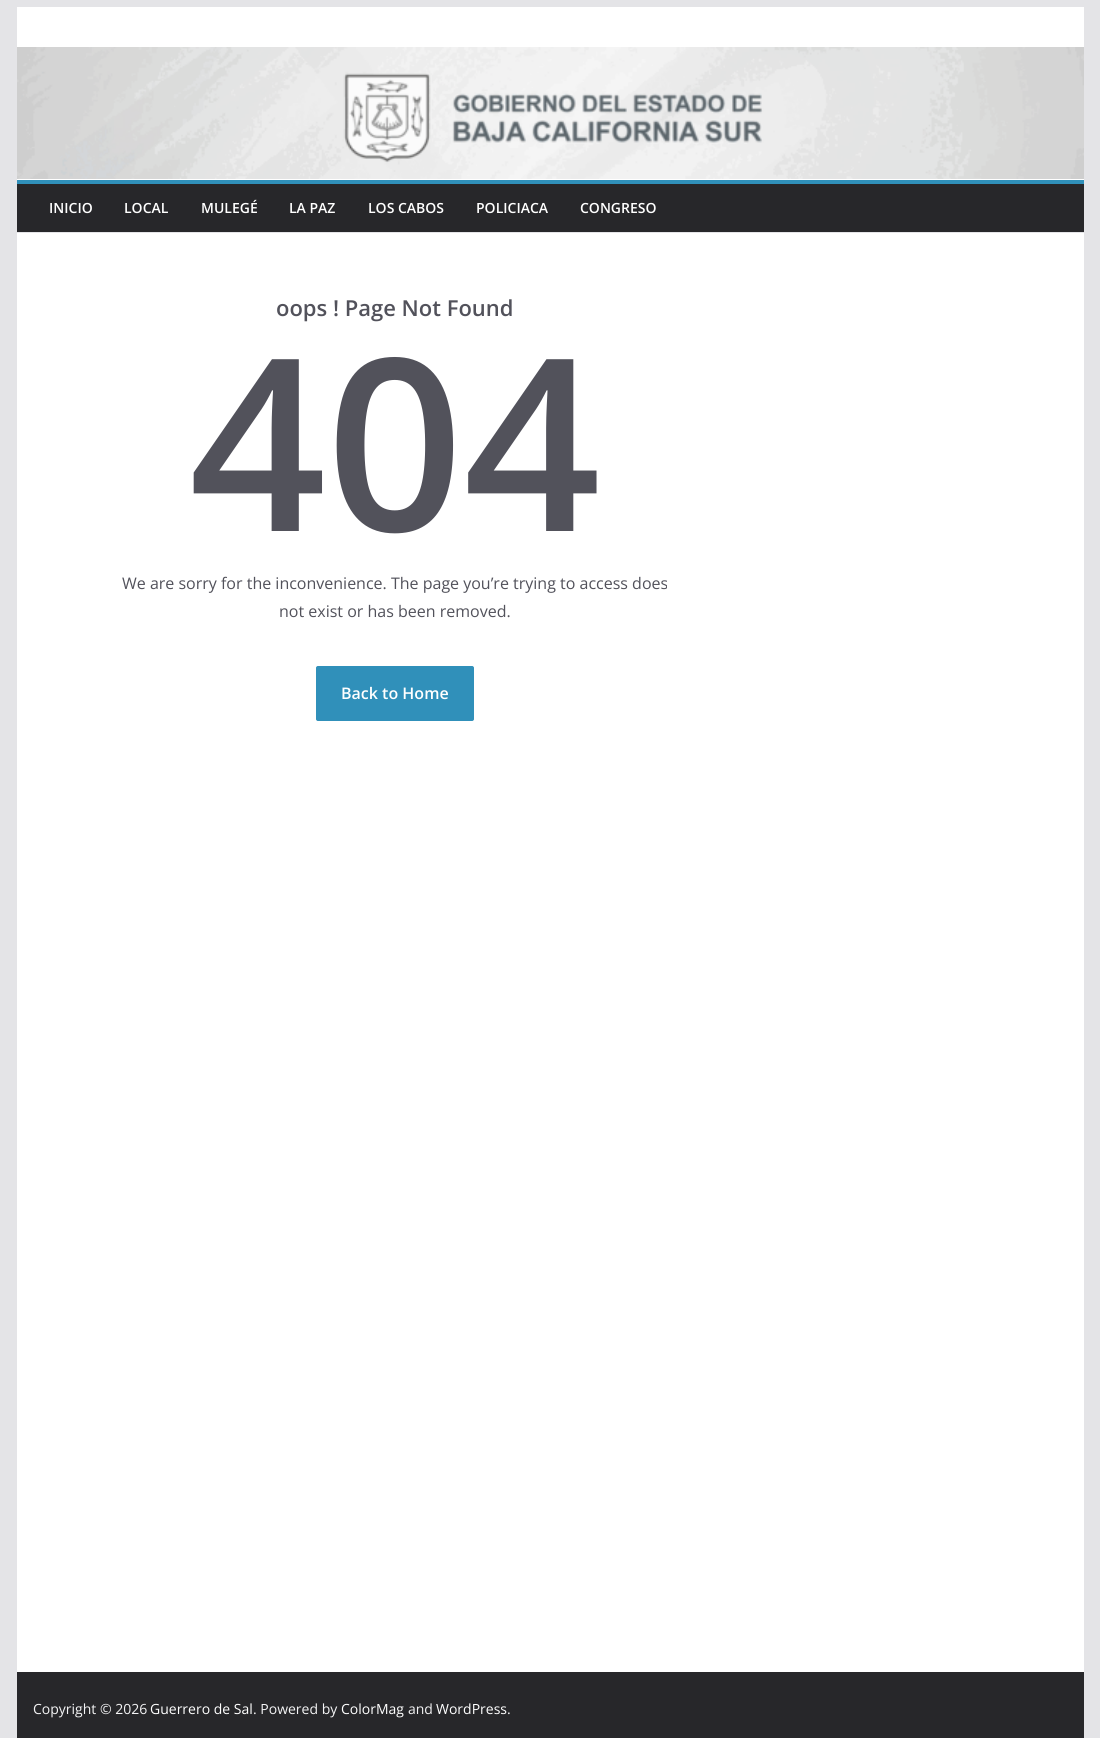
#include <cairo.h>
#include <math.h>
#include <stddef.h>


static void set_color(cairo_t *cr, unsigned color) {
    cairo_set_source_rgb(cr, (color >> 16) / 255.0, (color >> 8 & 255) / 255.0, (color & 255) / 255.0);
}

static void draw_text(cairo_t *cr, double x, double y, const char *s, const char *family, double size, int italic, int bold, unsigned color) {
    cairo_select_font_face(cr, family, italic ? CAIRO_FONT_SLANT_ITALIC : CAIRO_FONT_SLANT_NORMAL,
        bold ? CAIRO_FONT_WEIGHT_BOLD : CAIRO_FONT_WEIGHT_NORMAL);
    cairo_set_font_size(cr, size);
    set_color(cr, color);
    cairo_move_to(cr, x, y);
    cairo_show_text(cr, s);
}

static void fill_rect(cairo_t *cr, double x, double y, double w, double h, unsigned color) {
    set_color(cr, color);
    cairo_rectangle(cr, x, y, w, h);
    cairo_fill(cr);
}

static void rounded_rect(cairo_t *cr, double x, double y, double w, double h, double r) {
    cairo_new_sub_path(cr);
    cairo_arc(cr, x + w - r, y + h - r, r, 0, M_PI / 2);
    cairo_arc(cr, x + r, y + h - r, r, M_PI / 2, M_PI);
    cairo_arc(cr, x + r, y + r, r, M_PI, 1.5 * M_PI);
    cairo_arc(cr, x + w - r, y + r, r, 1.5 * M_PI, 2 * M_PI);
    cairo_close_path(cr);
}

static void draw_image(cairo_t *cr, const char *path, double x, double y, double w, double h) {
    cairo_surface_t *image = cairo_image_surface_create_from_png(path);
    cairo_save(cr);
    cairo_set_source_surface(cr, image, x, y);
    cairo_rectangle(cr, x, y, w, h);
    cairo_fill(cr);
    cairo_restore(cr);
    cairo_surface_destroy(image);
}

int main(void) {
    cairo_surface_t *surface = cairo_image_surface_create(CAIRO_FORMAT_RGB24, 1100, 1738);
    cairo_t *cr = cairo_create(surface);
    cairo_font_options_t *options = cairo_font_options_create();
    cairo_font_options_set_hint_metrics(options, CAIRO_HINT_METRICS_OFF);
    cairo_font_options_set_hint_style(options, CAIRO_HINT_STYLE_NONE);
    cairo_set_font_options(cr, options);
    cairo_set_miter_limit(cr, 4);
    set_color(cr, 0xE4E4E7);
    cairo_paint(cr);
    fill_rect(cr, 17, 7, 1067, 173, 0xFFFFFF);
    draw_image(cr, "assets/img1.png", 17, 47, 1067, 132);
    fill_rect(cr, 17, 184, 1067, 48, 0x27272A);
    fill_rect(cr, 17, 180, 1067, 4, 0x3090BA);
    draw_text(cr, 49, 213, "INICIO", "Open Sans SemiBold", 14, 0, 0, 0xFFFFFF);
    draw_text(cr, 124, 213, "LOCAL", "Open Sans SemiBold", 14, 0, 0, 0xFFFFFF);
    draw_text(cr, 201, 213, "MULEGÉ", "Open Sans SemiBold", 14, 0, 0, 0xFFFFFF);
    draw_text(cr, 289, 213, "LA PAZ", "Open Sans SemiBold", 14, 0, 0, 0xFFFFFF);
    draw_text(cr, 368, 213, "LOS CABOS", "Open Sans SemiBold", 14, 0, 0, 0xFFFFFF);
    draw_text(cr, 476, 213, "POLICIACA", "Open Sans SemiBold", 14, 0, 0, 0xFFFFFF);
    draw_text(cr, 580, 213, "CONGRESO", "Open Sans SemiBold", 14, 0, 0, 0xFFFFFF);
    fill_rect(cr, 17, 233, 1067, 1439, 0xFFFFFF);
    draw_text(cr, 276, 316, "oops ! Page Not Found", "Open Sans SemiBold", 22, 0, 0, 0x52525B);
    draw_text(cr, 189, 531, "404", "Open Sans SemiBold", 240, 0, 0, 0x52525B);
    draw_text(cr, 122, 589, "We are sorry for the inconvenience. The page you’re trying to access does", "Open Sans", 16, 0, 0, 0x52525B);
    draw_text(cr, 279, 617, "not exist or has been removed.", "Open Sans", 16, 0, 0, 0x52525B);
    set_color(cr, 0x3090BA);
    rounded_rect(cr, 316.5, 666.5, 157, 54, 1.5);
    cairo_fill_preserve(cr);
    cairo_set_line_width(cr, 1);
    cairo_stroke(cr);
    draw_text(cr, 341, 699, "Back to Home", "Open Sans SemiBold", 16, 0, 0, 0xFFFFFF);
    fill_rect(cr, 17, 1672, 1067, 66, 0x27272A);
    draw_text(cr, 33, 1714, "Copyright © 2026", "Open Sans", 14, 0, 0, 0xF4F4F5);
    draw_text(cr, 150, 1714, "Guerrero de Sal", "Open Sans", 14, 0, 0, 0xFFFFFF);
    draw_text(cr, 253, 1714, ". Powered by", "Open Sans", 14, 0, 0, 0xF4F4F5);
    draw_text(cr, 341, 1714, "ColorMag", "Open Sans", 14, 0, 0, 0xFFFFFF);
    draw_text(cr, 408, 1714, "and", "Open Sans", 14, 0, 0, 0xF4F4F5);
    draw_text(cr, 436, 1714, "WordPress", "Open Sans", 14, 0, 0, 0xFFFFFF);
    draw_text(cr, 507, 1714, ".", "Open Sans", 14, 0, 0, 0xF4F4F5);
    cairo_surface_write_to_png(surface, "output.png");
    cairo_font_options_destroy(options);
    cairo_destroy(cr);
    cairo_surface_destroy(surface);
    return 0;
}
